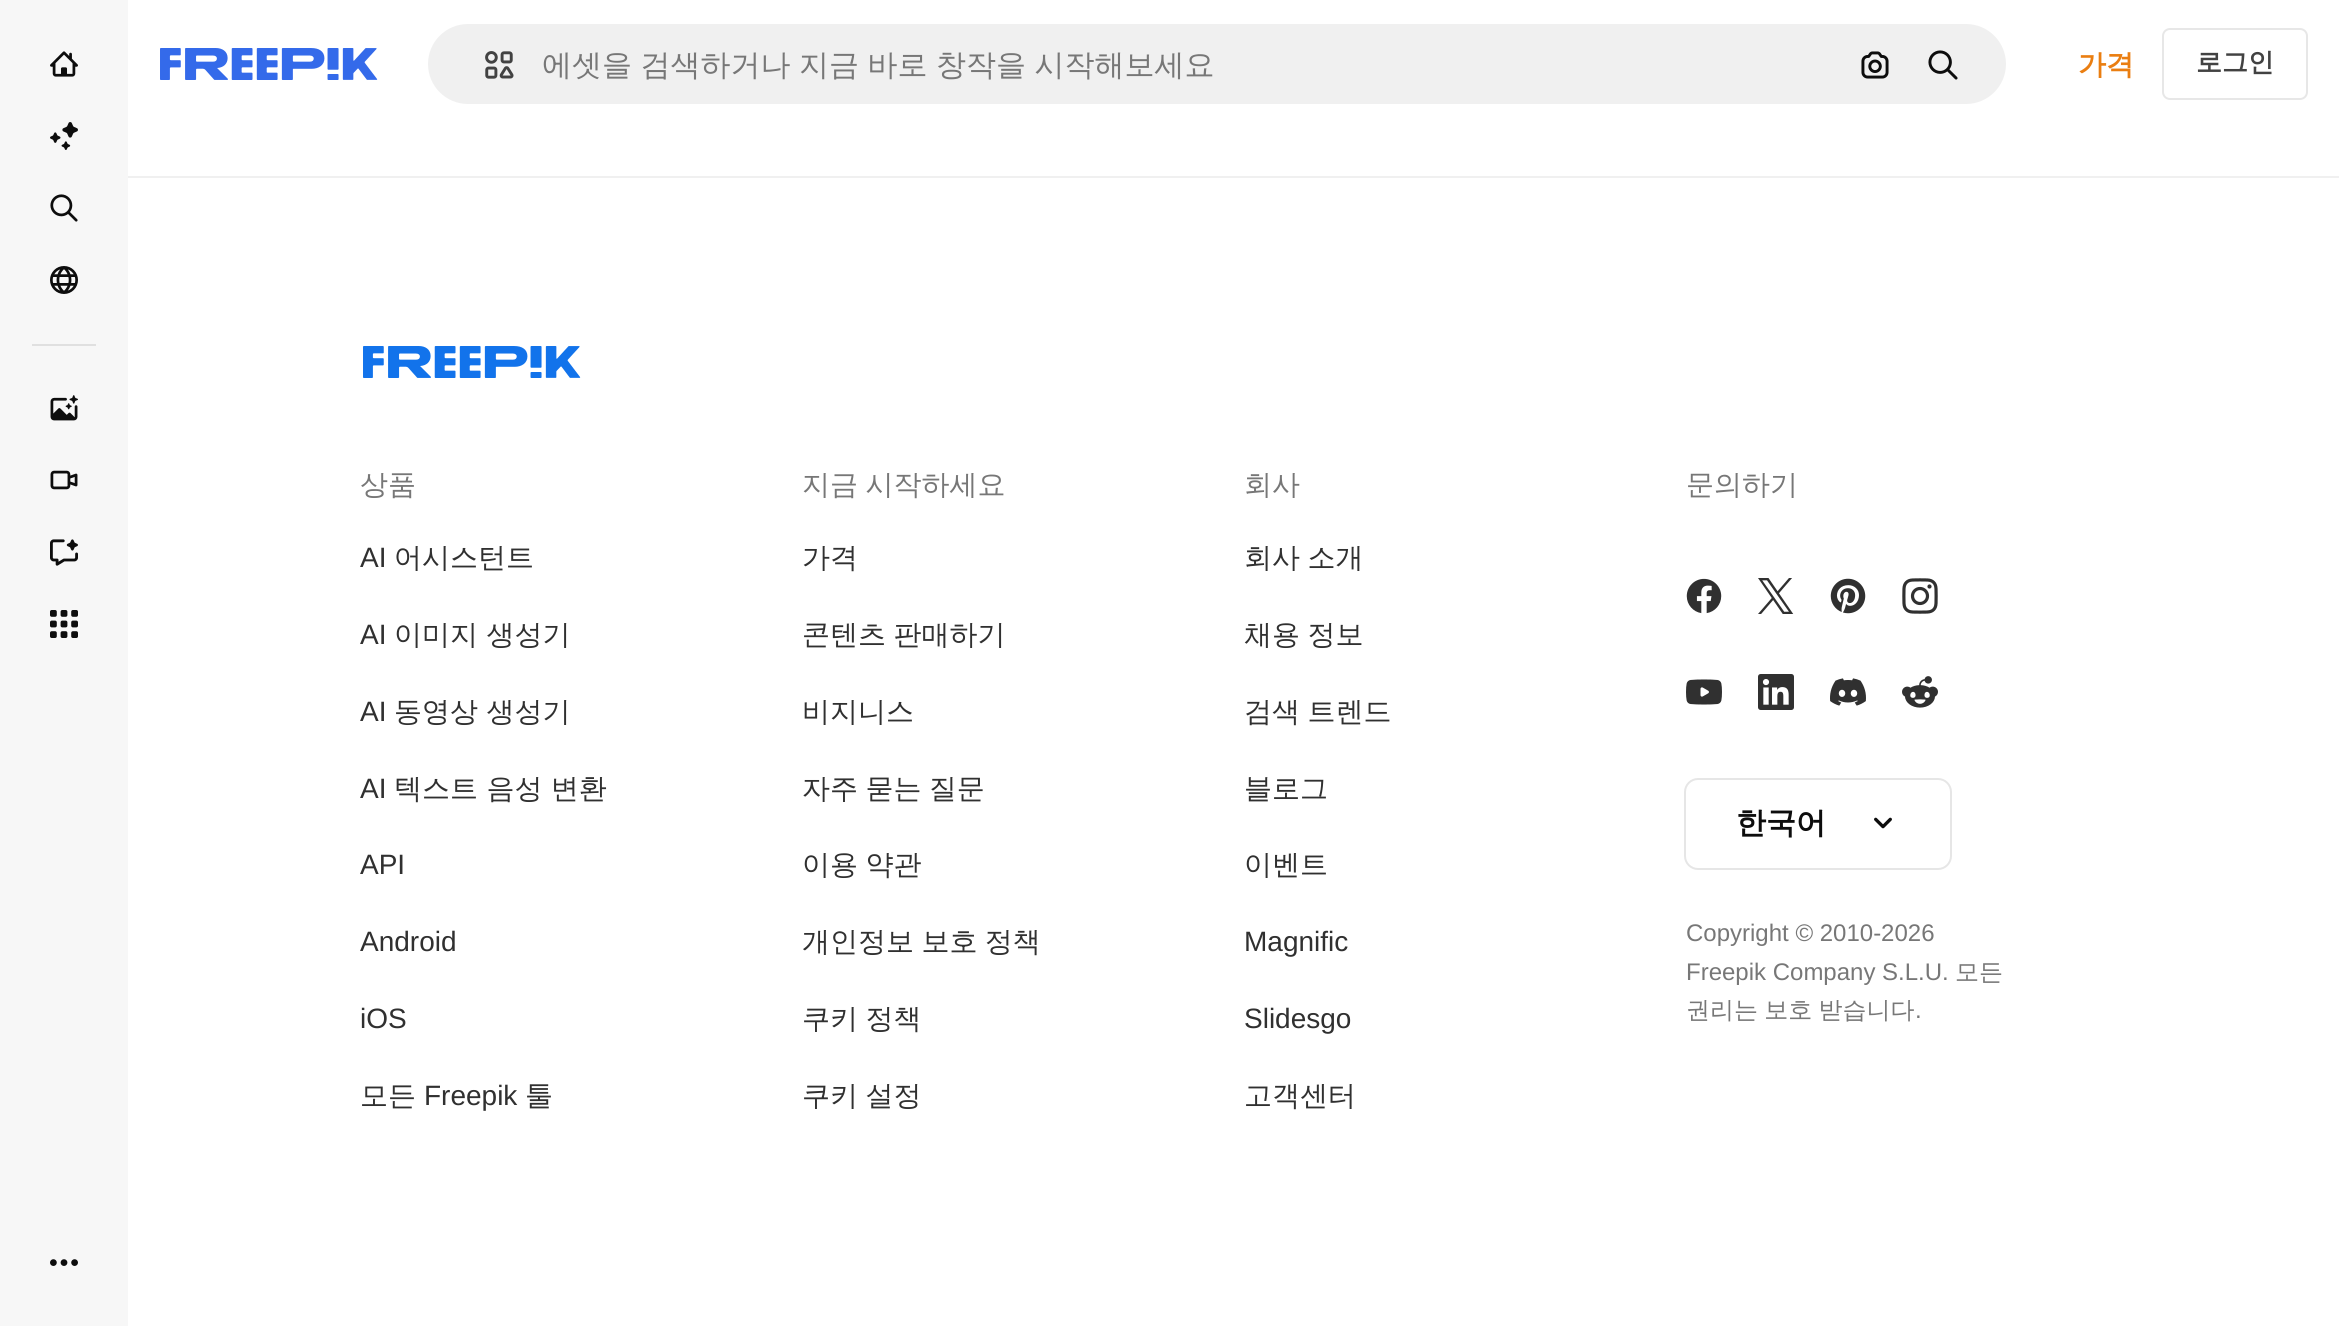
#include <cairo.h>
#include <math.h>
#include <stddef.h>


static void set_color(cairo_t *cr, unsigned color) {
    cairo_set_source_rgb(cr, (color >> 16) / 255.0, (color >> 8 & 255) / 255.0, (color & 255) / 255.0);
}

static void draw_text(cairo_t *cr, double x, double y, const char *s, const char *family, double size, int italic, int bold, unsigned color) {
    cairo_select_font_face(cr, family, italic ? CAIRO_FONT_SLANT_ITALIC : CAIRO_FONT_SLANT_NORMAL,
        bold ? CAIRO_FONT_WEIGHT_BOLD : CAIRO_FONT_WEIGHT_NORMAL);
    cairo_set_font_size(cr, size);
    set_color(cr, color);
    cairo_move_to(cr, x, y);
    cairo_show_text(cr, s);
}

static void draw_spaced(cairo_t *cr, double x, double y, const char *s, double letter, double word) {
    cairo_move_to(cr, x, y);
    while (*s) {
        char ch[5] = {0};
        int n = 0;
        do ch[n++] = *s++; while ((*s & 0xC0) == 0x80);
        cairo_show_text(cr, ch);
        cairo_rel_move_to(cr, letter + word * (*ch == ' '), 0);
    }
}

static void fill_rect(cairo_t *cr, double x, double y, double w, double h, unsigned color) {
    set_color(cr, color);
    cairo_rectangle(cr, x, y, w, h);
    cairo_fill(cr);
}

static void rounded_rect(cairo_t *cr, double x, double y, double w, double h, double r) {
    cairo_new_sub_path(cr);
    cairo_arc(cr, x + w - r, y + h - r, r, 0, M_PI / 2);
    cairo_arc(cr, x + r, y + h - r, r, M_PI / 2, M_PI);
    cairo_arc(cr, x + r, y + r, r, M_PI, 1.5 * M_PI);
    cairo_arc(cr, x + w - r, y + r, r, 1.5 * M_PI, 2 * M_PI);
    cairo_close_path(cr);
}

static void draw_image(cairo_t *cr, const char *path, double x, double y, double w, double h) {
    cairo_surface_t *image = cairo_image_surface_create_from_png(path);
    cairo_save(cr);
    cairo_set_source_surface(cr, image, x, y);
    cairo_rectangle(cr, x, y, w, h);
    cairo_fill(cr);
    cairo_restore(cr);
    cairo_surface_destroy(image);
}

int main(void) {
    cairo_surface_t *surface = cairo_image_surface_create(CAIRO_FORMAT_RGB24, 2339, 1326);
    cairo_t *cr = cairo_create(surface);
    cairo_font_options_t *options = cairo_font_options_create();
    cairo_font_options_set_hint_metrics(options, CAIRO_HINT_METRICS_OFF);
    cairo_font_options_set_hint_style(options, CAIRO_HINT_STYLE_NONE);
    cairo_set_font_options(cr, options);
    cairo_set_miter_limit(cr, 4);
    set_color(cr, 0xFFFFFF);
    cairo_paint(cr);
    fill_rect(cr, 0, 0, 128, 1326, 0xF7F7F7);
    draw_image(cr, "assets/img1.png", 50, 51, 28, 26);
    draw_image(cr, "assets/img2.png", 50, 122, 28, 28);
    draw_image(cr, "assets/img3.png", 50, 194, 28, 28);
    draw_image(cr, "assets/img4.png", 50, 266, 28, 28);
    fill_rect(cr, 32, 344, 64, 2, 0xE0E0E0);
    draw_image(cr, "assets/img5.png", 50, 395, 28, 26);
    draw_image(cr, "assets/img6.png", 50, 470, 28, 20);
    draw_image(cr, "assets/img7.png", 50, 539, 28, 27);
    draw_image(cr, "assets/img8.png", 50, 610, 28, 28);
    draw_image(cr, "assets/img9.png", 50, 1259, 28, 7);
    draw_image(cr, "assets/img10.png", 160, 48, 218, 32);
    set_color(cr, 0xF0F0F0);
    rounded_rect(cr, 427, 23, 1580, 82, 41);
    cairo_fill_preserve(cr);
    set_color(cr, 0xFFFFFF);
    cairo_stroke(cr);
    draw_image(cr, "assets/img11.png", 485, 51, 29, 28);
    cairo_select_font_face(cr, "WenQuanYi Zen Hei Medium", CAIRO_FONT_SLANT_NORMAL, CAIRO_FONT_WEIGHT_NORMAL);
    cairo_set_font_size(cr, 30);
    set_color(cr, 0x777777);
    draw_spaced(cr, 542, 75, "에셋을 검색하거나 지금 바로 창작을 시작해보세요", 0, -0.5);
    draw_image(cr, "assets/img12.png", 1861, 51, 28, 28);
    draw_image(cr, "assets/img13.png", 1928, 50, 30, 30);
    draw_text(cr, 2078, 74, "가격", "WenQuanYi Zen Hei", 28, 0, 1, 0xEA7E11);
    rounded_rect(cr, 2163, 29, 144, 70, 7);
    set_color(cr, 0xE7E7E7);
    cairo_stroke(cr);
    draw_text(cr, 2196, 71, "로그인", "WenQuanYi Zen Hei", 26, 0, 1, 0x424242);
    fill_rect(cr, 128, 176, 2211, 2, 0xF0F0F0);
    draw_image(cr, "assets/img14.png", 363, 346, 218, 32);
    draw_text(cr, 360, 494, "상품", "WenQuanYi Zen Hei Medium", 28, 0, 0, 0x777777);
    draw_text(cr, 360, 567, "AI", "Liberation Sans", 28, 0, 0, 0x303030);
    draw_text(cr, 394, 567, "어시스턴트", "WenQuanYi Zen Hei Medium", 28, 0, 0, 0x303030);
    draw_text(cr, 360, 644, "AI", "Liberation Sans", 28, 0, 0, 0x303030);
    draw_text(cr, 394, 644, "이미지 생성기", "WenQuanYi Zen Hei Medium", 28, 0, 0, 0x303030);
    draw_text(cr, 360, 721, "AI", "Liberation Sans", 28, 0, 0, 0x303030);
    draw_text(cr, 394, 721, "동영상 생성기", "WenQuanYi Zen Hei Medium", 28, 0, 0, 0x303030);
    draw_text(cr, 360, 798, "AI", "Liberation Sans", 28, 0, 0, 0x303030);
    draw_text(cr, 394, 798, "텍스트 음성 변환", "WenQuanYi Zen Hei Medium", 28, 0, 0, 0x303030);
    draw_text(cr, 360, 874, "API", "Liberation Sans", 28, 0, 0, 0x303030);
    draw_text(cr, 360, 951, "Android", "Liberation Sans", 28, 0, 0, 0x303030);
    draw_text(cr, 360, 1028, "iOS", "Liberation Sans", 28, 0, 0, 0x303030);
    draw_text(cr, 360, 1105, "모든", "WenQuanYi Zen Hei Medium", 28, 0, 0, 0x303030);
    draw_text(cr, 424, 1105, "Freepik", "Liberation Sans", 28, 0, 0, 0x303030);
    draw_text(cr, 525, 1105, "툴", "WenQuanYi Zen Hei Medium", 28, 0, 0, 0x303030);
    set_color(cr, 0x777777);
    draw_spaced(cr, 802, 494, "지금 시작하세요", 0, -1);
    draw_text(cr, 802, 567, "가격", "WenQuanYi Zen Hei Medium", 28, 0, 0, 0x303030);
    draw_spaced(cr, 802, 644, "콘텐츠 판매하기", 0, -1);
    draw_text(cr, 802, 721, "비지니스", "WenQuanYi Zen Hei Medium", 28, 0, 0, 0x303030);
    draw_spaced(cr, 802, 798, "자주 묻는 질문", 0, -1);
    draw_spaced(cr, 802, 874, "이용 약관", 0, -1);
    draw_spaced(cr, 802, 951, "개인정보 보호 정책", 0, -1);
    draw_spaced(cr, 802, 1028, "쿠키 정책", 0, -1);
    draw_spaced(cr, 802, 1105, "쿠키 설정", 0, -1);
    draw_text(cr, 1244, 494, "회사", "WenQuanYi Zen Hei Medium", 28, 0, 0, 0x777777);
    set_color(cr, 0x303030);
    draw_spaced(cr, 1244, 567, "회사 소개", 0, -1);
    draw_spaced(cr, 1244, 644, "채용 정보", 0, -1);
    draw_spaced(cr, 1244, 721, "검색 트렌드", 0, -1);
    draw_text(cr, 1244, 798, "블로그", "WenQuanYi Zen Hei Medium", 28, 0, 0, 0x303030);
    draw_text(cr, 1244, 874, "이벤트", "WenQuanYi Zen Hei Medium", 28, 0, 0, 0x303030);
    draw_text(cr, 1244, 951, "Magnific", "Liberation Sans", 28, 0, 0, 0x303030);
    draw_text(cr, 1244, 1028, "Slidesgo", "Liberation Sans", 28, 0, 0, 0x303030);
    draw_text(cr, 1244, 1105, "고객센터", "WenQuanYi Zen Hei Medium", 28, 0, 0, 0x303030);
    draw_text(cr, 1686, 494, "문의하기", "WenQuanYi Zen Hei Medium", 28, 0, 0, 0x777777);
    draw_image(cr, "assets/img15.png", 1686, 578, 36, 36);
    draw_image(cr, "assets/img16.png", 1758, 578, 36, 36);
    draw_image(cr, "assets/img17.png", 1830, 578, 36, 36);
    draw_image(cr, "assets/img18.png", 1902, 578, 36, 36);
    draw_image(cr, "assets/img19.png", 1686, 679, 36, 26);
    draw_image(cr, "assets/img20.png", 1758, 674, 36, 36);
    draw_image(cr, "assets/img21.png", 1830, 678, 36, 28);
    draw_image(cr, "assets/img22.png", 1902, 676, 36, 32);
    rounded_rect(cr, 1685, 779, 266, 90, 13);
    set_color(cr, 0xE6E6E6);
    cairo_stroke(cr);
    draw_text(cr, 1736, 833, "한국어", "WenQuanYi Zen Hei", 30, 0, 1, 0x0D0D0D);
    draw_image(cr, "assets/img23.png", 1874, 817, 18, 12);
    draw_text(cr, 1686, 941, "Copyright © 2010-2026", "Liberation Sans", 24, 0, 0, 0x777777);
    draw_text(cr, 1686, 980, "Freepik Company S.L.U.", "Liberation Sans", 24, 0, 0, 0x777777);
    draw_text(cr, 1955, 980, "모든", "WenQuanYi Zen Hei Medium", 24, 0, 0, 0x777777);
    draw_spaced(cr, 1686, 1018, "권리는 보호 받습니다", 0, -1);
    draw_text(cr, 1915, 1018, ".", "Liberation Sans", 24, 0, 0, 0x777777);
    cairo_surface_write_to_png(surface, "output.png");
    cairo_font_options_destroy(options);
    cairo_destroy(cr);
    cairo_surface_destroy(surface);
    return 0;
}
